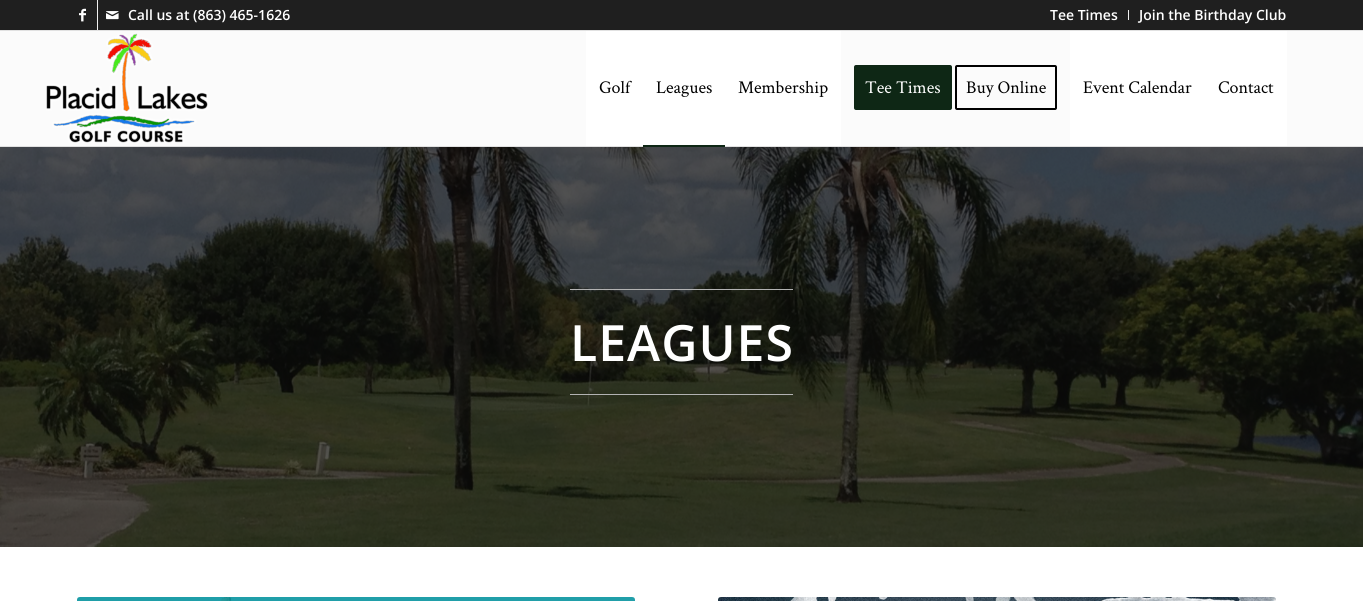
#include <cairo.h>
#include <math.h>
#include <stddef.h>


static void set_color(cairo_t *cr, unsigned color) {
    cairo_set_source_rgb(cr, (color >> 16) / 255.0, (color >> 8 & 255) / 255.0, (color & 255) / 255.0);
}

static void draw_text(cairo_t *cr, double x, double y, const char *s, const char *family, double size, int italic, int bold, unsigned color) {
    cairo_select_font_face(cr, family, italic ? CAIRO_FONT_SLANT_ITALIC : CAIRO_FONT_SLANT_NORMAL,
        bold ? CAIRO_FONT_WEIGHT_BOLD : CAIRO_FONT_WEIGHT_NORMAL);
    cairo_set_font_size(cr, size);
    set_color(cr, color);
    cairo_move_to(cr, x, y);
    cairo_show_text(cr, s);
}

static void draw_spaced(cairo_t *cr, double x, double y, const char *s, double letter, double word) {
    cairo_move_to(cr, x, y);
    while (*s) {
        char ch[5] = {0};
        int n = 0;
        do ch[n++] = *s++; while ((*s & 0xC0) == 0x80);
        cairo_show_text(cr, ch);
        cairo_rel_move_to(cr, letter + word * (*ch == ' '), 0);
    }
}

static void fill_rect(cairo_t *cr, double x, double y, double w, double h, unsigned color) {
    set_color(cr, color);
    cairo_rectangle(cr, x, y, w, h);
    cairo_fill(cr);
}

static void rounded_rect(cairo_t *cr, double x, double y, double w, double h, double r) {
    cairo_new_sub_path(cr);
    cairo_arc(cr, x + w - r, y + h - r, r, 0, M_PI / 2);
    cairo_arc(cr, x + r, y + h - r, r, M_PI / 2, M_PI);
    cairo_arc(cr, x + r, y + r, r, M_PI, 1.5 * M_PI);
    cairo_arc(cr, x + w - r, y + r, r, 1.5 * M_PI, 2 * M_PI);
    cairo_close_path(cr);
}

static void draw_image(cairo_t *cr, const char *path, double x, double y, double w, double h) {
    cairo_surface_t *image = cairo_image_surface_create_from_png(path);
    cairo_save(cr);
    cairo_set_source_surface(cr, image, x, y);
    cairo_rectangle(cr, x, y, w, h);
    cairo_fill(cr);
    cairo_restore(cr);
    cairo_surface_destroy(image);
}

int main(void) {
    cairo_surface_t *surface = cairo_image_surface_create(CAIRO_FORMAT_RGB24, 1363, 601);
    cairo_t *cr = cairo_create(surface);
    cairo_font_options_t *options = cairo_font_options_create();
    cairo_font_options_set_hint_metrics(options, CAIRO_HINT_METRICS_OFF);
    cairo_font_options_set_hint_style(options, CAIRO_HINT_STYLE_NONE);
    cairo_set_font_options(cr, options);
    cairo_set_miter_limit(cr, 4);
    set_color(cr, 0xFFFFFF);
    cairo_paint(cr);
    fill_rect(cr, 0, 0, 1363, 30, 0x1F1F1F);
    fill_rect(cr, 0, 30, 1363, 1, 0xE1E1E1);
    fill_rect(cr, 97, 0, 1, 30, 0xEFEFEF);
    draw_image(cr, "assets/img1.png", 79, 8, 7, 14);
    draw_image(cr, "assets/img2.png", 106, 11, 13, 9);
    draw_text(cr, 128, 20, "Call us at (863) 465-1626", "Open Sans SemiBold", 14, 0, 0, 0xFFFFFF);
    fill_rect(cr, 1128, 10, 1, 10, 0xEFEFEF);
    draw_text(cr, 1050, 20, "Tee Times", "Open Sans SemiBold", 14, 0, 0, 0xFFFFFF);
    draw_text(cr, 1139, 20, "Join the Birthday Club", "Open Sans SemiBold", 14, 0, 0, 0xFFFFFF);
    fill_rect(cr, 0, 31, 1363, 115, 0xFBFBFB);
    fill_rect(cr, 0, 146, 1363, 1, 0xE1E1E1);
    draw_image(cr, "assets/img3.png", 46, 33, 162, 110);
    fill_rect(cr, 586, 31, 57, 115, 0xFFFFFF);
    draw_text(cr, 599, 93, "Golf", "Crimson Text", 18, 0, 0, 0x000000);
    fill_rect(cr, 643, 31, 82, 114, 0xFFFFFF);
    draw_text(cr, 656, 93, "Leagues", "Crimson Text", 18, 0, 0, 0x000000);
    fill_rect(cr, 643, 145, 82, 2, 0x0E2715);
    fill_rect(cr, 725, 31, 116, 115, 0xFFFFFF);
    draw_text(cr, 738, 93, "Membership", "Crimson Text", 18, 0, 0, 0x000000);
    set_color(cr, 0x0E2715);
    rounded_rect(cr, 855, 66, 96, 43, 1);
    cairo_fill_preserve(cr);
    cairo_stroke(cr);
    draw_text(cr, 865, 93, "Tee Times", "Crimson Text", 18, 0, 0, 0xFFFFFF);
    rounded_rect(cr, 956, 66, 100, 43, 1);
    set_color(cr, 0x000000);
    cairo_stroke(cr);
    draw_text(cr, 966, 93, "Buy Online", "Crimson Text", 18, 0, 0, 0x000000);
    fill_rect(cr, 1070, 31, 217, 115, 0xFFFFFF);
    draw_text(cr, 1083, 93, "Event Calendar", "Crimson Text", 18, 0, 0, 0x000000);
    draw_text(cr, 1218, 93, "Contact", "Crimson Text", 18, 0, 0, 0x000000);
    draw_image(cr, "assets/img4.png", 0, 147, 1363, 400);
    cairo_select_font_face(cr, "Open Sans SemiBold", CAIRO_FONT_SLANT_NORMAL, CAIRO_FONT_WEIGHT_NORMAL);
    cairo_set_font_size(cr, 50);
    set_color(cr, 0xFFFFFF);
    draw_spaced(cr, 570, 361, "LEAGUES", 1, 0);
    fill_rect(cr, 570, 289, 223, 1, 0xB2B2B2);
    fill_rect(cr, 570, 394, 223, 1, 0xB2B2B2);
    draw_image(cr, "assets/img5.png", 77, 597, 558, 4);
    draw_image(cr, "assets/img6.png", 718, 597, 558, 4);
    cairo_surface_write_to_png(surface, "output.png");
    cairo_font_options_destroy(options);
    cairo_destroy(cr);
    cairo_surface_destroy(surface);
    return 0;
}
